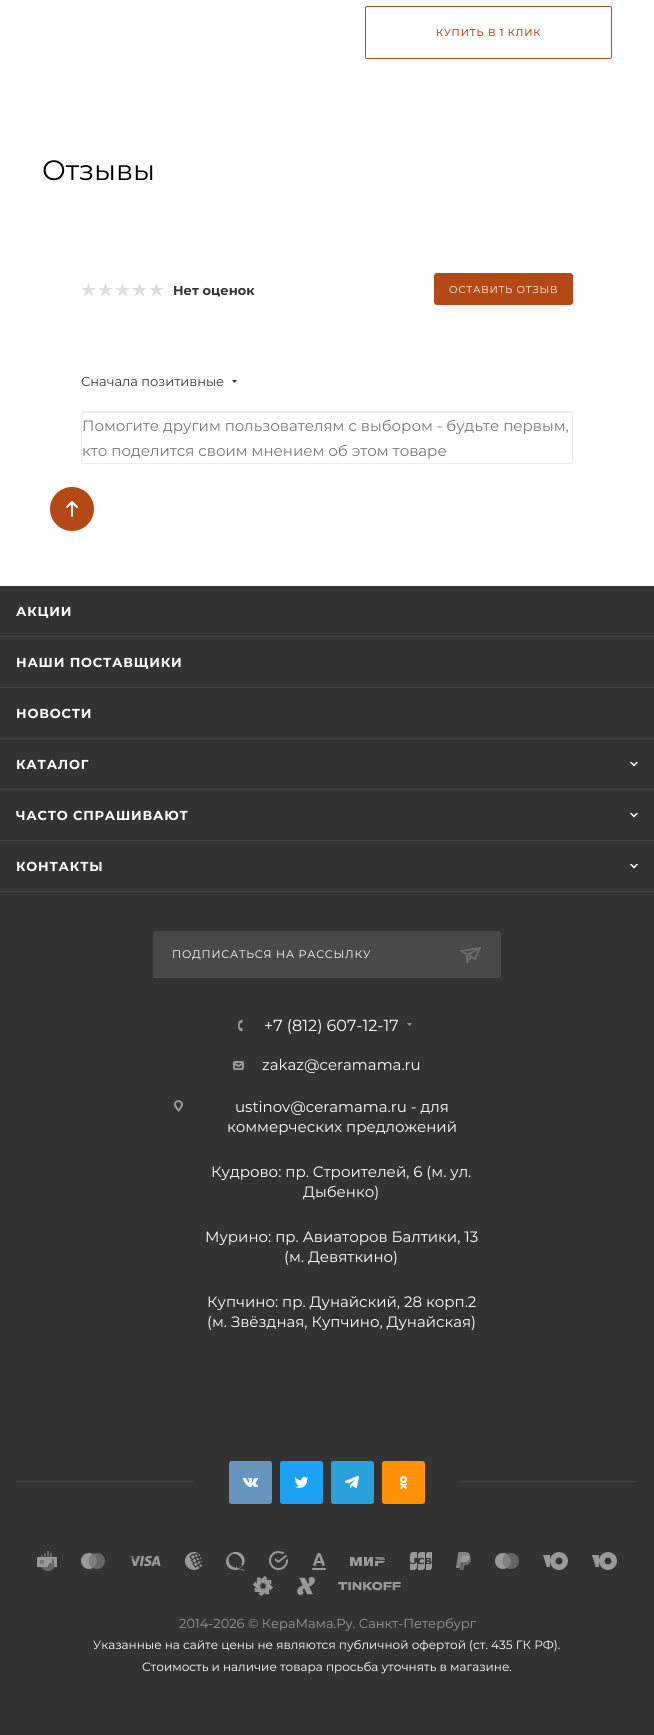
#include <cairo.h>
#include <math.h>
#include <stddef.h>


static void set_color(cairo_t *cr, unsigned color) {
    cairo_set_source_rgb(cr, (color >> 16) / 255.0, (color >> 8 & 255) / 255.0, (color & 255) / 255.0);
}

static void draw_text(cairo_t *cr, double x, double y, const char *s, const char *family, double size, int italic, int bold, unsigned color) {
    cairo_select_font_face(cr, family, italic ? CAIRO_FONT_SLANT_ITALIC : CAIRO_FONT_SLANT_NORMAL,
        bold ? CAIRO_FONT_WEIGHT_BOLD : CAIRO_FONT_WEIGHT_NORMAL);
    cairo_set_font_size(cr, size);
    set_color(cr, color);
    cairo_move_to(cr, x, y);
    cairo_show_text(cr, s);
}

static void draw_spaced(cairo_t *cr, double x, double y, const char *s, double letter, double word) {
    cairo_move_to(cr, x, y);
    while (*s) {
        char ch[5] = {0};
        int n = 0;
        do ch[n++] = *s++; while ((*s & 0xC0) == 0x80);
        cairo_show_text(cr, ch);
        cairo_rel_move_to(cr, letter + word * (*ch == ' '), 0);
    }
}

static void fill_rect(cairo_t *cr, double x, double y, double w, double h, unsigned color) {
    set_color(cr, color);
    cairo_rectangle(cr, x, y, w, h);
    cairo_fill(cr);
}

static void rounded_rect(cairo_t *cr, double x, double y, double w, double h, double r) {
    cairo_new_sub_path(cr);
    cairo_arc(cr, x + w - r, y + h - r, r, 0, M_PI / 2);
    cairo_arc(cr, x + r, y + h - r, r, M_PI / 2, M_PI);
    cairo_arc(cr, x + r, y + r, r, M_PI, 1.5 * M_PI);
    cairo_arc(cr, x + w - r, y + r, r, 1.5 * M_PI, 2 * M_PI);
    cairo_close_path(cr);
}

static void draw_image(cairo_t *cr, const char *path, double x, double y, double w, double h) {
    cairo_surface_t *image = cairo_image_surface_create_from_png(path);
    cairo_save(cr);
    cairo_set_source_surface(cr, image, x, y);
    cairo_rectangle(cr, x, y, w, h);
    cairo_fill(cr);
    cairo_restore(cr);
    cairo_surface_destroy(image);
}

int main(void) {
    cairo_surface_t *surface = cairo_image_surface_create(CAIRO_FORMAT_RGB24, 654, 1735);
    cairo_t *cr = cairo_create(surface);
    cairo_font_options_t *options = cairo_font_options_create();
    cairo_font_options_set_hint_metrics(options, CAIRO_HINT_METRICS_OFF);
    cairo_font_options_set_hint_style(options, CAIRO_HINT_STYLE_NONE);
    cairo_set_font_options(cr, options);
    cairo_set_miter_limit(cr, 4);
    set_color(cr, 0x333333);
    cairo_paint(cr);
    fill_rect(cr, 0, 0, 654, 586, 0xFFFFFF);
    rounded_rect(cr, 365.5, 6.5, 246, 52, 1.5);
    set_color(cr, 0xB54817);
    cairo_set_line_width(cr, 1);
    cairo_stroke(cr);
    cairo_select_font_face(cr, "Montserrat Medium", CAIRO_FONT_SLANT_NORMAL, CAIRO_FONT_WEIGHT_NORMAL);
    cairo_set_font_size(cr, 10);
    draw_spaced(cr, 436, 36, "КУПИТЬ В 1 КЛИК", 0.8, 0);
    draw_text(cr, 42, 180, "Отзывы", "Montserrat", 28, 0, 0, 0x000000);
    draw_image(cr, "assets/img1.png", 81, 283, 15, 13);
    draw_image(cr, "assets/img1.png", 98, 283, 15, 13);
    draw_image(cr, "assets/img1.png", 115, 283, 15, 13);
    draw_image(cr, "assets/img1.png", 132, 283, 15, 13);
    draw_image(cr, "assets/img1.png", 149, 283, 15, 13);
    draw_text(cr, 173, 295, "Нет оценок", "Montserrat", 13, 0, 1, 0x333333);
    set_color(cr, 0xB54817);
    rounded_rect(cr, 434.5, 273.5, 138, 31, 2.5);
    cairo_fill_preserve(cr);
    cairo_stroke(cr);
    cairo_select_font_face(cr, "Montserrat", CAIRO_FONT_SLANT_NORMAL, CAIRO_FONT_WEIGHT_NORMAL);
    cairo_set_font_size(cr, 10);
    set_color(cr, 0xFFFFFF);
    draw_spaced(cr, 449, 293, "ОСТАВИТЬ ОТЗЫВ", 0.8, 0);
    fill_rect(cr, 81, 411, 492, 1, 0xECECEC);
    draw_text(cr, 81, 386, "Сначала позитивные", "Montserrat", 13, 0, 0, 0x333333);
    cairo_set_fill_rule(cr, CAIRO_FILL_RULE_EVEN_ODD);
    cairo_new_path(cr);
    cairo_move_to(cr, 232, 380);
    cairo_line_to(cr, 237, 380);
    cairo_line_to(cr, 234.5, 383);
    cairo_close_path(cr);
    cairo_fill(cr);
    rounded_rect(cr, 81.5, 412.5, 491, 51, 2.5);
    set_color(cr, 0xECECEC);
    cairo_stroke(cr);
    draw_text(cr, 82, 431, "Помогите другим пользователям с выбором - будьте первым,", "Montserrat", 15, 0, 0, 0x777777);
    draw_text(cr, 82, 456, "кто поделится своим мнением об этом товаре", "Montserrat", 15, 0, 0, 0x777777);
    set_color(cr, 0xB54817);
    cairo_new_path(cr);
    cairo_arc(cr, 72, 509, 22, 0, 2 * M_PI);
    cairo_fill(cr);
    draw_image(cr, "assets/img2.png", 66, 501, 12, 16);
    fill_rect(cr, 0, 636, 654, 1, 0x434343);
    cairo_select_font_face(cr, "Montserrat", CAIRO_FONT_SLANT_NORMAL, CAIRO_FONT_WEIGHT_BOLD);
    cairo_set_font_size(cr, 13);
    set_color(cr, 0xFFFFFF);
    draw_spaced(cr, 16, 616, "АКЦИИ", 0.8, 0);
    fill_rect(cr, 0, 687, 654, 1, 0x434343);
    set_color(cr, 0xFFFFFF);
    draw_spaced(cr, 16, 667, "НАШИ ПОСТАВЩИКИ", 0.8, 0);
    fill_rect(cr, 0, 738, 654, 1, 0x434343);
    set_color(cr, 0xFFFFFF);
    draw_spaced(cr, 16, 718, "НОВОСТИ", 0.8, 0);
    fill_rect(cr, 0, 789, 654, 1, 0x434343);
    set_color(cr, 0xFFFFFF);
    draw_spaced(cr, 16, 769, "КАТАЛОГ", 0.8, 0);
    draw_image(cr, "assets/img3.png", 630, 762, 8, 5);
    fill_rect(cr, 0, 840, 654, 1, 0x434343);
    set_color(cr, 0xFFFFFF);
    draw_spaced(cr, 16, 820, "ЧАСТО СПРАШИВАЮТ", 0.8, 0);
    draw_image(cr, "assets/img4.png", 630, 813, 8, 5);
    fill_rect(cr, 0, 891, 654, 1, 0x434343);
    set_color(cr, 0xFFFFFF);
    draw_spaced(cr, 16, 871, "КОНТАКТЫ", 0.8, 0);
    draw_image(cr, "assets/img5.png", 630, 864, 8, 5);
    set_color(cr, 0x494949);
    rounded_rect(cr, 153.5, 931.5, 347, 46, 2.5);
    cairo_fill_preserve(cr);
    cairo_stroke(cr);
    cairo_select_font_face(cr, "Montserrat", CAIRO_FONT_SLANT_NORMAL, CAIRO_FONT_WEIGHT_NORMAL);
    cairo_set_font_size(cr, 11);
    set_color(cr, 0xFFFFFF);
    draw_spaced(cr, 172, 958, "ПОДПИСАТЬСЯ НА РАССЫЛКУ", 0.8, 0);
    draw_image(cr, "assets/img6.png", 460, 947, 21, 16);
    draw_image(cr, "assets/img7.png", 238, 1020, 5, 11);
    cairo_save(cr);
    cairo_set_fill_rule(cr, CAIRO_FILL_RULE_WINDING);
    cairo_rectangle(cr, 235, 1018, 177, 16);
    cairo_clip(cr);
    draw_text(cr, 264, 1031, "+7 (812) 607-12-17", "Montserrat", 16, 0, 0, 0xFFFFFF);
    cairo_restore(cr);
    set_color(cr, 0x999999);
    cairo_new_path(cr);
    cairo_move_to(cr, 407, 1023);
    cairo_line_to(cr, 412, 1023);
    cairo_line_to(cr, 409.5, 1026);
    cairo_close_path(cr);
    cairo_fill(cr);
    draw_image(cr, "assets/img8.png", 233, 1061, 11, 9);
    draw_text(cr, 262, 1070, "zakaz@ceramama.ru", "Montserrat", 15, 0, 0, 0xFFFFFF);
    draw_image(cr, "assets/img9.png", 174, 1100, 9, 12);
    draw_text(cr, 235, 1112, "ustinov@ceramama.ru - для", "Montserrat", 15, 0, 0, 0xFFFFFF);
    draw_text(cr, 227, 1132, "коммерческих предложений", "Montserrat", 15, 0, 0, 0xFFFFFF);
    draw_text(cr, 211, 1177, "Кудрово: пр. Строителей, 6 (м. ул.", "Montserrat", 15, 0, 0, 0xFFFFFF);
    draw_text(cr, 303, 1197, "Дыбенко)", "Montserrat", 15, 0, 0, 0xFFFFFF);
    draw_text(cr, 205, 1242, "Мурино: пр. Авиаторов Балтики, 13", "Montserrat", 15, 0, 0, 0xFFFFFF);
    draw_text(cr, 284, 1262, "(м. Девяткино)", "Montserrat", 15, 0, 0, 0xFFFFFF);
    draw_text(cr, 207, 1307, "Купчино: пр. Дунайский, 28 корп.2", "Montserrat", 15, 0, 0, 0xFFFFFF);
    draw_text(cr, 207, 1327, "(м. Звёздная, Купчино, Дунайская)", "Montserrat", 15, 0, 0, 0xFFFFFF);
    fill_rect(cr, 16, 1481, 622, 1, 0x434343);
    fill_rect(cr, 193, 1481, 268, 1, 0x333333);
    draw_image(cr, "assets/img10.png", 229, 1461, 43, 43);
    draw_image(cr, "assets/img11.png", 280, 1461, 43, 43);
    draw_image(cr, "assets/img12.png", 331, 1461, 43, 43);
    draw_image(cr, "assets/img13.png", 382, 1461, 43, 43);
    draw_image(cr, "assets/img14.png", 37, 1551, 20, 20);
    draw_image(cr, "assets/img15.png", 81, 1553, 24, 16);
    draw_image(cr, "assets/img16.png", 129, 1556, 32, 10);
    draw_image(cr, "assets/img17.png", 185, 1552, 17, 18);
    draw_image(cr, "assets/img18.png", 226, 1552, 19, 19);
    draw_image(cr, "assets/img19.png", 269, 1551, 19, 19);
    draw_image(cr, "assets/img20.png", 312, 1553, 14, 17);
    draw_image(cr, "assets/img21.png", 350, 1557, 35, 9);
    draw_image(cr, "assets/img22.png", 410, 1552, 22, 18);
    draw_image(cr, "assets/img23.png", 456, 1552, 15, 18);
    draw_image(cr, "assets/img24.png", 495, 1553, 24, 16);
    draw_image(cr, "assets/img25.png", 543, 1552, 25, 18);
    draw_image(cr, "assets/img25.png", 592, 1552, 25, 18);
    draw_image(cr, "assets/img26.png", 253, 1576, 20, 20);
    draw_image(cr, "assets/img27.png", 297, 1577, 18, 18);
    draw_image(cr, "assets/img28.png", 338, 1581, 63, 10);
    draw_text(cr, 179, 1628, "2014-2026 © КераМама.Ру. Санкт-Петербург", "Montserrat", 13, 0, 0, 0x999999);
    draw_text(cr, 93, 1649, "Указанные на сайте цены не являются публичной офертой (ст. 435 ГК РФ).", "Montserrat", 12, 0, 0, 0xFFFFFF);
    draw_text(cr, 142, 1671, "Стоимость и наличие товара просьба уточнять в магазине.", "Montserrat", 12, 0, 0, 0xFFFFFF);
    cairo_surface_write_to_png(surface, "output.png");
    cairo_font_options_destroy(options);
    cairo_destroy(cr);
    cairo_surface_destroy(surface);
    return 0;
}
